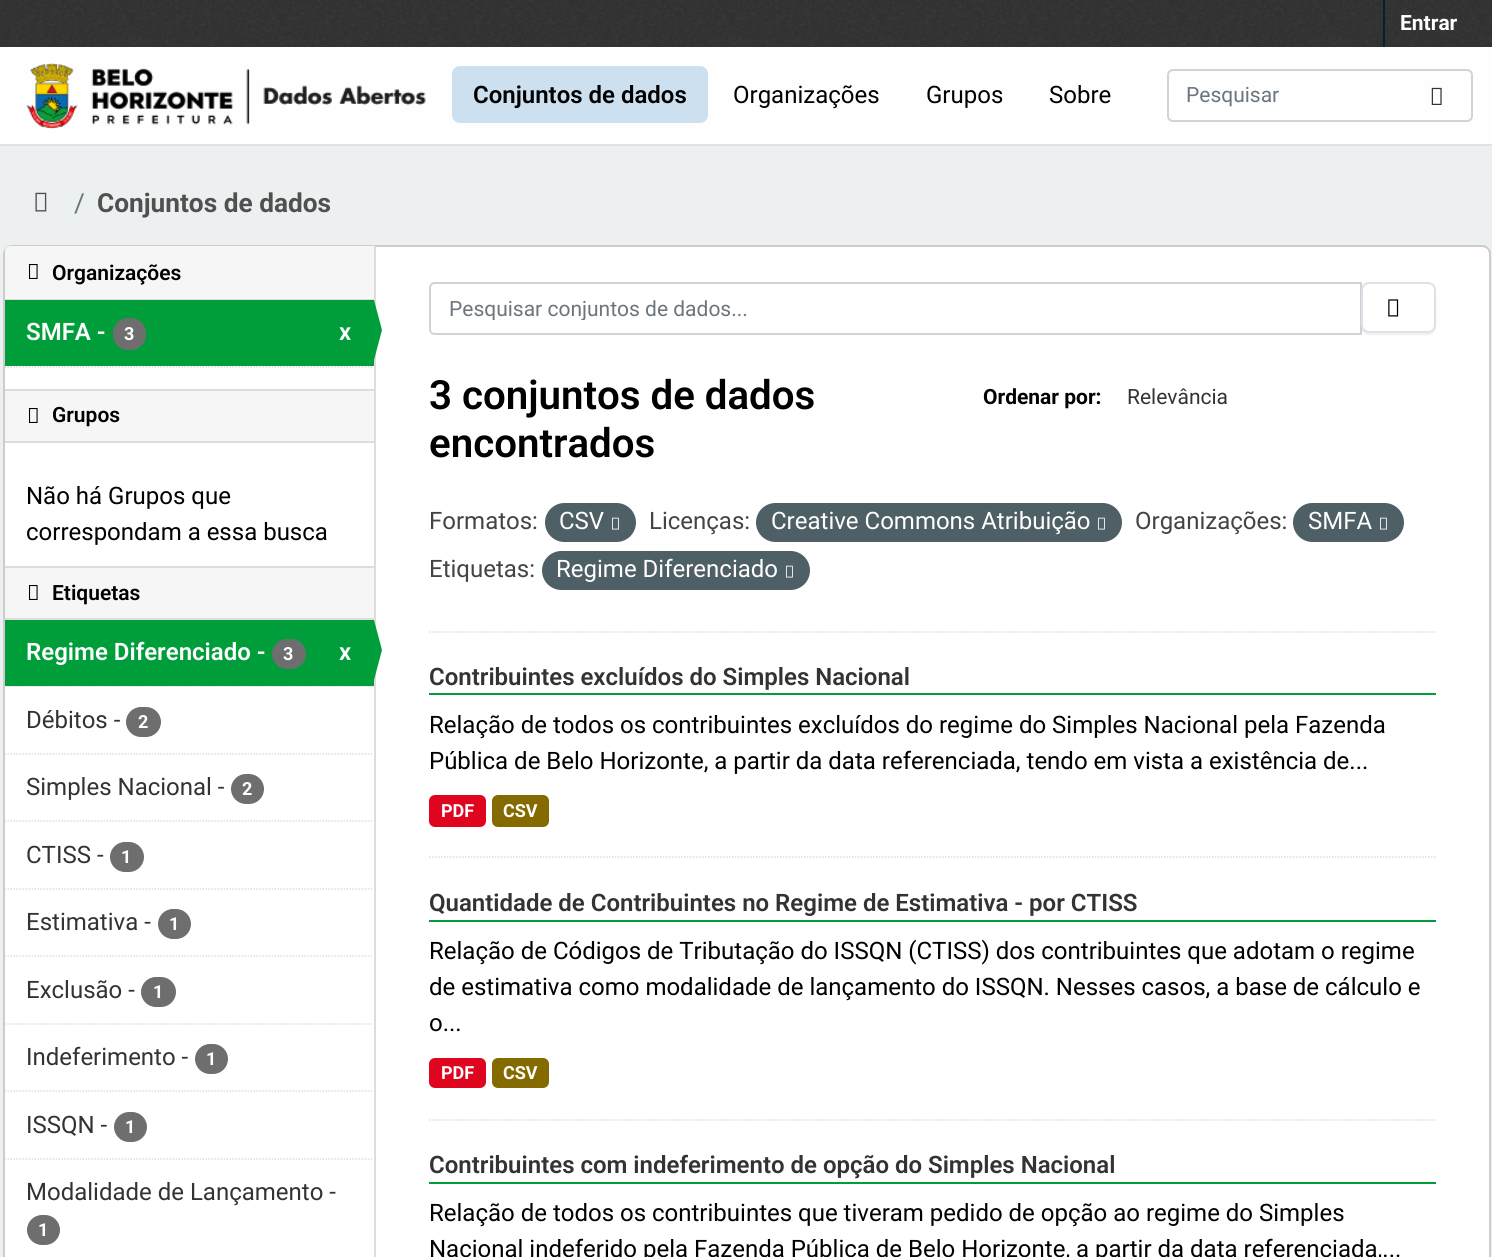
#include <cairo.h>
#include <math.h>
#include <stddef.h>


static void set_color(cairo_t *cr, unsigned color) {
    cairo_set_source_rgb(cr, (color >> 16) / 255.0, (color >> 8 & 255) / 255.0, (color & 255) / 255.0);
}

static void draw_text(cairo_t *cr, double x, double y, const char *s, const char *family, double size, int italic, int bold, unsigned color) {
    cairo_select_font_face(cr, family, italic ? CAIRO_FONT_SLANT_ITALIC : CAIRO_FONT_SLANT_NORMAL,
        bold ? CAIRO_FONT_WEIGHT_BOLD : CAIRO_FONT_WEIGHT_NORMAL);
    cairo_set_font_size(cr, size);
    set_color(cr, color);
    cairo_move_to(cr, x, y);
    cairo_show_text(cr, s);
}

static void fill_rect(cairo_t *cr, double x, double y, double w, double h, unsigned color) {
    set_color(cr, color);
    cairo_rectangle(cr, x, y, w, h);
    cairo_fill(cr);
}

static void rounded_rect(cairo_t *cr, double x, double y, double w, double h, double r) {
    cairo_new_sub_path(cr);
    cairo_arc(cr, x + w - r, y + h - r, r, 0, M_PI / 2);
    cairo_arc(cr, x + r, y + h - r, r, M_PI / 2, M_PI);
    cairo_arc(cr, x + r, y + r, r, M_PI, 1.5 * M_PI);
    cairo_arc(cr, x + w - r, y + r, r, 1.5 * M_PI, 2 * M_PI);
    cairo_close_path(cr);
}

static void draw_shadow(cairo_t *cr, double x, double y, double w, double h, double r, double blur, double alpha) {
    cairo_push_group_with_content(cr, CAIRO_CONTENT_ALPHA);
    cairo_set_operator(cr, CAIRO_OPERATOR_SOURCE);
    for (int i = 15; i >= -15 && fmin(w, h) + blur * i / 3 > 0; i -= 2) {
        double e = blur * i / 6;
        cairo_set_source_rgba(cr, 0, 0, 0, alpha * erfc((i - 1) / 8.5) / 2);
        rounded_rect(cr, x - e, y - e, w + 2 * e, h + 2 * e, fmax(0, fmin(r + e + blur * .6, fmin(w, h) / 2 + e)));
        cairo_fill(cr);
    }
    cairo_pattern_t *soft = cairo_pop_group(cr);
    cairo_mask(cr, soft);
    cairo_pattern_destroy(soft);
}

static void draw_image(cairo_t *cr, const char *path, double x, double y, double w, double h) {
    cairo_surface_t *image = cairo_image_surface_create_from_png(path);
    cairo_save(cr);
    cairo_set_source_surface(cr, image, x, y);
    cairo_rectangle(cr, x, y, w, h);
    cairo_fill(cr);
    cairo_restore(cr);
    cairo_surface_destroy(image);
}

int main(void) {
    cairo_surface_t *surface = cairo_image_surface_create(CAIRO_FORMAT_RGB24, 1492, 1257);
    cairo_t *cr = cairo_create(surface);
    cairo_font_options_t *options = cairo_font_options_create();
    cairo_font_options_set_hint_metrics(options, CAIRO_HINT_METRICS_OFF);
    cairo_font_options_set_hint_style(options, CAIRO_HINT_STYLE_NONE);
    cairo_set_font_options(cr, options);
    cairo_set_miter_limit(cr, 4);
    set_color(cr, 0xECF0F1);
    cairo_paint(cr);
    fill_rect(cr, 0, 0, 1492, 47, 0x333333);
    draw_image(cr, "assets/img1.png", 2, 0, 1490, 46);
    fill_rect(cr, 1383, 0, 2, 47, 0x00232E);
    draw_text(cr, 1400, 30, "Entrar", "Roboto", 21, 0, 1, 0xFFFFFF);
    fill_rect(cr, 0, 47, 1492, 97, 0xFEFEFE);
    fill_rect(cr, 0, 144, 1492, 2, 0xDEE2E6);
    draw_image(cr, "assets/img2.png", 26, 63, 400, 66);
    set_color(cr, 0xCCE0EF);
    rounded_rect(cr, 452, 66, 256, 57, 8);
    cairo_fill(cr);
    draw_text(cr, 473, 103, "Conjuntos de dados", "Roboto SemiBold", 24, 0, 0, 0x000000);
    draw_text(cr, 733, 103, "Organizações", "Roboto", 24, 0, 0, 0x000000);
    draw_text(cr, 926, 103, "Grupos", "Roboto", 24, 0, 0, 0x000000);
    draw_text(cr, 1049, 103, "Sobre", "Roboto", 24, 0, 0, 0x000000);
    rounded_rect(cr, 1168, 70, 304, 51, 5);
    set_color(cr, 0xCED4DA);
    cairo_stroke(cr);
    draw_text(cr, 1186, 102, "Pesquisar", "Roboto", 21, 0, 0, 0x6C757D);
    draw_image(cr, "assets/img3.png", 1431, 87, 11, 18);
    draw_image(cr, "assets/img4.png", 35, 192, 12, 20);
    draw_text(cr, 74, 212, "/", "Roboto", 26.25, 0, 0, 0x6C757D);
    draw_text(cr, 97, 212, "Conjuntos de dados", "Roboto", 26.25, 0, 1, 0x505050);
    set_color(cr, 0xFFFFFF);
    rounded_rect(cr, 4, 246, 1486, 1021, 8);
    cairo_fill_preserve(cr);
    set_color(cr, 0xCCCCCC);
    cairo_stroke(cr);
    set_color(cr, 0xF6F6F6);
    cairo_new_path(cr);
    cairo_move_to(cr, 10, 246);
    cairo_line_to(cr, 374, 246);
    cairo_line_to(cr, 374, 300);
    cairo_line_to(cr, 5, 300);
    cairo_line_to(cr, 5, 251);
    cairo_curve_to(cr, 5, 248, 7, 246, 10, 246);
    cairo_close_path(cr);
    cairo_fill(cr);
    fill_rect(cr, 5, 299, 369, 1, 0xDDDDDD);
    draw_image(cr, "assets/img5.png", 28, 264, 10, 15);
    draw_text(cr, 52, 280, "Organizações", "Roboto SemiBold", 21, 0, 0, 0x000000);
    fill_rect(cr, 5, 300, 369, 66, 0x009E3B);
    draw_text(cr, 26, 340, "SMFA -", "Roboto SemiBold", 24, 0, 0, 0xFFFFFF);
    set_color(cr, 0x6E6E6E);
    rounded_rect(cr, 113, 318, 33, 32, 15);
    cairo_fill(cr);
    draw_text(cr, 124, 340, "3", "Roboto", 18, 0, 1, 0xFFFFFF);
    draw_text(cr, 339, 340, "x", "Roboto SemiBold", 24, 0, 0, 0xFFFFFF);
    fill_rect(cr, 374, 246, 2, 1011, 0xDDDDDD);
    set_color(cr, 0x009E3B);
    cairo_new_path(cr);
    cairo_move_to(cr, 374, 360);
    cairo_line_to(cr, 374, 300);
    cairo_line_to(cr, 382, 330);
    cairo_close_path(cr);
    cairo_fill(cr);
    cairo_new_path(cr);
    cairo_move_to(cr, 4.5, 367);
    cairo_line_to(cr, 373.5, 367);
    set_color(cr, 0xDDDDDD);
    cairo_set_line_width(cr, 1.5);
    cairo_set_dash(cr, (double[]){1.5, 1.5}, 2, 0);
    cairo_stroke(cr);
    fill_rect(cr, 5, 391, 369, 50, 0xF6F6F6);
    fill_rect(cr, 5, 389, 369, 2, 0xDDDDDD);
    fill_rect(cr, 5, 441, 369, 2, 0xDDDDDD);
    draw_image(cr, "assets/img5.png", 28, 408, 10, 15);
    draw_text(cr, 52, 422, "Grupos", "Roboto SemiBold", 21, 0, 0, 0x000000);
    draw_text(cr, 26, 504, "Não há Grupos que", "Roboto", 24, 0, 0, 0x000000);
    draw_text(cr, 26, 540, "correspondam a essa busca", "Roboto", 24, 0, 0, 0x000000);
    fill_rect(cr, 5, 568, 369, 50, 0xF6F6F6);
    fill_rect(cr, 5, 566, 369, 2, 0xDDDDDD);
    fill_rect(cr, 5, 618, 369, 2, 0xDDDDDD);
    draw_image(cr, "assets/img5.png", 28, 585, 10, 15);
    draw_text(cr, 52, 600, "Etiquetas", "Roboto SemiBold", 21, 0, 0, 0x000000);
    fill_rect(cr, 5, 686, 369, 1, 0xF6F6F6);
    cairo_new_path(cr);
    cairo_move_to(cr, 4.5, 686);
    cairo_line_to(cr, 373.5, 686);
    set_color(cr, 0xDDDDDD);
    cairo_stroke(cr);
    fill_rect(cr, 5, 620, 369, 66, 0x009E3B);
    draw_text(cr, 26, 660, "Regime Diferenciado -", "Roboto SemiBold", 24, 0, 0, 0xFFFFFF);
    set_color(cr, 0x6E6E6E);
    rounded_rect(cr, 272, 639, 34, 30, 15);
    cairo_fill(cr);
    draw_text(cr, 283, 660, "3", "Roboto", 18, 0, 1, 0xFFFFFF);
    draw_text(cr, 339, 660, "x", "Roboto SemiBold", 24, 0, 0, 0xFFFFFF);
    set_color(cr, 0x009E3B);
    cairo_new_path(cr);
    cairo_move_to(cr, 374, 680);
    cairo_line_to(cr, 374, 620);
    cairo_line_to(cr, 382, 650);
    cairo_close_path(cr);
    cairo_fill(cr);
    cairo_new_path(cr);
    cairo_move_to(cr, 4.5, 754);
    cairo_line_to(cr, 373.5, 754);
    set_color(cr, 0xDDDDDD);
    cairo_stroke(cr);
    draw_text(cr, 26, 728, "Débitos -", "Roboto", 24, 0, 0, 0x333333);
    set_color(cr, 0x6E6E6E);
    rounded_rect(cr, 126, 707, 35, 30, 15);
    cairo_fill(cr);
    draw_text(cr, 138, 728, "2", "Roboto", 18, 0, 1, 0xFFFFFF);
    cairo_new_path(cr);
    cairo_move_to(cr, 4.5, 821);
    cairo_line_to(cr, 373.5, 821);
    set_color(cr, 0xDDDDDD);
    cairo_stroke(cr);
    draw_text(cr, 26, 795, "Simples Nacional -", "Roboto", 24, 0, 0, 0x333333);
    set_color(cr, 0x6E6E6E);
    rounded_rect(cr, 231, 774, 33, 30, 15);
    cairo_fill(cr);
    draw_text(cr, 242, 795, "2", "Roboto", 18, 0, 1, 0xFFFFFF);
    cairo_new_path(cr);
    cairo_move_to(cr, 4.5, 889);
    cairo_line_to(cr, 373.5, 889);
    set_color(cr, 0xDDDDDD);
    cairo_stroke(cr);
    draw_text(cr, 26, 863, "CTISS -", "Roboto", 24, 0, 0, 0x333333);
    set_color(cr, 0x6E6E6E);
    rounded_rect(cr, 110, 842, 34, 30, 15);
    cairo_fill(cr);
    draw_text(cr, 121, 863, "1", "Roboto", 18, 0, 1, 0xFFFFFF);
    cairo_new_path(cr);
    cairo_move_to(cr, 4.5, 956);
    cairo_line_to(cr, 373.5, 956);
    set_color(cr, 0xDDDDDD);
    cairo_stroke(cr);
    draw_text(cr, 26, 930, "Estimativa -", "Roboto", 24, 0, 0, 0x333333);
    set_color(cr, 0x6E6E6E);
    rounded_rect(cr, 158, 909, 33, 30, 15);
    cairo_fill(cr);
    draw_text(cr, 169, 930, "1", "Roboto", 18, 0, 1, 0xFFFFFF);
    cairo_new_path(cr);
    cairo_move_to(cr, 4.5, 1024);
    cairo_line_to(cr, 373.5, 1024);
    set_color(cr, 0xDDDDDD);
    cairo_stroke(cr);
    draw_text(cr, 26, 998, "Exclusão -", "Roboto", 24, 0, 0, 0x333333);
    set_color(cr, 0x6E6E6E);
    rounded_rect(cr, 141, 977, 35, 30, 15);
    cairo_fill(cr);
    draw_text(cr, 153, 998, "1", "Roboto", 18, 0, 1, 0xFFFFFF);
    cairo_new_path(cr);
    cairo_move_to(cr, 4.5, 1091);
    cairo_line_to(cr, 373.5, 1091);
    set_color(cr, 0xDDDDDD);
    cairo_stroke(cr);
    draw_text(cr, 26, 1065, "Indeferimento -", "Roboto", 24, 0, 0, 0x333333);
    set_color(cr, 0x6E6E6E);
    rounded_rect(cr, 195, 1044, 33, 30, 15);
    cairo_fill(cr);
    draw_text(cr, 206, 1065, "1", "Roboto", 18, 0, 1, 0xFFFFFF);
    cairo_new_path(cr);
    cairo_move_to(cr, 4.5, 1159);
    cairo_line_to(cr, 373.5, 1159);
    set_color(cr, 0xDDDDDD);
    cairo_stroke(cr);
    draw_text(cr, 26, 1133, "ISSQN -", "Roboto", 24, 0, 0, 0x333333);
    set_color(cr, 0x6E6E6E);
    rounded_rect(cr, 114, 1112, 33, 30, 15);
    cairo_fill(cr);
    draw_text(cr, 125, 1133, "1", "Roboto", 18, 0, 1, 0xFFFFFF);
    draw_text(cr, 26, 1200, "Modalidade de Lançamento -", "Roboto", 24, 0, 0, 0x333333);
    set_color(cr, 0x6E6E6E);
    rounded_rect(cr, 27, 1215, 33, 30, 15);
    cairo_fill(cr);
    draw_text(cr, 38, 1236, "1", "Roboto", 18, 0, 1, 0xFFFFFF);
    cairo_new_path(cr);
    cairo_move_to(cr, 429, 632);
    cairo_line_to(cr, 1435.5, 632);
    set_color(cr, 0xDDDDDD);
    cairo_stroke(cr);
    cairo_new_path(cr);
    cairo_move_to(cr, 435, 283);
    cairo_line_to(cr, 1361, 283);
    cairo_line_to(cr, 1361, 334);
    cairo_line_to(cr, 435, 334);
    cairo_curve_to(cr, 432, 334, 430, 332, 430, 329);
    cairo_line_to(cr, 430, 288);
    cairo_curve_to(cr, 430, 285, 432, 283, 435, 283);
    cairo_close_path(cr);
    set_color(cr, 0xCED4DA);
    cairo_set_line_width(cr, 2);
    cairo_set_dash(cr, NULL, 0, 0);
    cairo_stroke(cr);
    cairo_save(cr);
    cairo_rectangle(cr, 449, 296, 894, 24);
    cairo_clip(cr);
    draw_text(cr, 449, 316, "Pesquisar conjuntos de dados...", "Roboto", 21, 0, 0, 0x6C757D);
    cairo_restore(cr);
    set_color(cr, 0x000000);
    draw_shadow(cr, 1361, 284, 75, 51, 8, 1, 0.07);
    set_color(cr, 0xFFFFFF);
    rounded_rect(cr, 1362, 283, 73, 49, 7);
    cairo_fill_preserve(cr);
    set_color(cr, 0xDEE2E6);
    cairo_stroke(cr);
    draw_image(cr, "assets/img6.png", 1388, 299, 11, 18);
    draw_text(cr, 429, 409, "3 conjuntos de dados", "Roboto SemiBold", 40.25, 0, 0, 0x000000);
    draw_text(cr, 429, 457, "encontrados", "Roboto SemiBold", 40.25, 0, 0, 0x000000);
    draw_text(cr, 983, 404, "Ordenar por:", "Roboto", 21, 0, 1, 0x000000);
    draw_text(cr, 1127, 404, "Relevância", "Roboto", 21, 0, 0, 0x333333);
    draw_text(cr, 429, 529, "Formatos:", "Roboto", 24, 0, 0, 0x444444);
    set_color(cr, 0x4E5F65);
    rounded_rect(cr, 545, 503, 91, 39, 19.5);
    cairo_fill(cr);
    draw_text(cr, 559, 529, "CSV", "Roboto", 24, 0, 0, 0xFFFFFF);
    draw_image(cr, "assets/img7.png", 612, 517, 7, 13);
    draw_text(cr, 649, 529, "Licenças:", "Roboto", 24, 0, 0, 0x444444);
    set_color(cr, 0x4E5F65);
    rounded_rect(cr, 756, 503, 366, 39, 19.5);
    cairo_fill(cr);
    draw_text(cr, 771, 529, "Creative Commons Atribuição", "Roboto", 24, 0, 0, 0xFFFFFF);
    draw_image(cr, "assets/img7.png", 1098, 517, 7, 13);
    draw_text(cr, 1135, 529, "Organizações:", "Roboto", 24, 0, 0, 0x444444);
    set_color(cr, 0x4E5F65);
    rounded_rect(cr, 1293, 503, 111, 39, 19.5);
    cairo_fill(cr);
    draw_text(cr, 1308, 529, "SMFA", "Roboto", 24, 0, 0, 0xFFFFFF);
    draw_image(cr, "assets/img7.png", 1380, 517, 7, 13);
    draw_text(cr, 429, 577, "Etiquetas:", "Roboto", 24, 0, 0, 0x444444);
    set_color(cr, 0x4E5F65);
    rounded_rect(cr, 542, 551, 268, 39, 19.5);
    cairo_fill(cr);
    draw_text(cr, 556, 577, "Regime Diferenciado", "Roboto", 24, 0, 0, 0xFFFFFF);
    draw_image(cr, "assets/img7.png", 786, 565, 7, 13);
    cairo_new_path(cr);
    cairo_move_to(cr, 429, 857);
    cairo_line_to(cr, 1435.5, 857);
    set_color(cr, 0xDDDDDD);
    cairo_set_line_width(cr, 1.5);
    cairo_set_dash(cr, (double[]){1.5, 1.5}, 2, 0);
    cairo_stroke(cr);
    fill_rect(cr, 429, 693, 1007, 2, 0x009E3B);
    draw_text(cr, 429, 685, "Contribuintes excluídos do Simples Nacional", "Roboto SemiBold", 24, 0, 0, 0x333333);
    draw_text(cr, 429, 733, "Relação de todos os contribuintes excluídos do regime do Simples Nacional pela Fazenda", "Roboto", 24, 0, 0, 0x000000);
    draw_text(cr, 429, 769, "Pública de Belo Horizonte, a partir da data referenciada, tendo em vista a existência de...", "Roboto", 24, 0, 0, 0x000000);
    set_color(cr, 0xE0051E);
    rounded_rect(cr, 429, 795, 57, 32, 6);
    cairo_fill(cr);
    draw_text(cr, 441, 817, "PDF", "Roboto", 18, 0, 1, 0xFFFFFF);
    set_color(cr, 0x856A00);
    rounded_rect(cr, 492, 795, 57, 32, 6);
    cairo_fill(cr);
    draw_text(cr, 503, 817, "CSV", "Roboto", 18, 0, 1, 0xFFFFFF);
    cairo_new_path(cr);
    cairo_move_to(cr, 429, 1120);
    cairo_line_to(cr, 1435.5, 1120);
    set_color(cr, 0xDDDDDD);
    cairo_stroke(cr);
    fill_rect(cr, 429, 920, 1007, 2, 0x009E3B);
    draw_text(cr, 429, 911, "Quantidade de Contribuintes no Regime de Estimativa - por CTISS", "Roboto SemiBold", 24, 0, 0, 0x333333);
    draw_text(cr, 429, 959, "Relação de Códigos de Tributação do ISSQN (CTISS) dos contribuintes que adotam o regime", "Roboto", 24, 0, 0, 0x000000);
    draw_text(cr, 429, 995, "de estimativa como modalidade de lançamento do ISSQN. Nesses casos, a base de cálculo e", "Roboto", 24, 0, 0, 0x000000);
    draw_text(cr, 429, 1031, "o...", "Roboto", 24, 0, 0, 0x000000);
    set_color(cr, 0xE0051E);
    rounded_rect(cr, 429, 1058, 57, 30, 6);
    cairo_fill(cr);
    draw_text(cr, 441, 1079, "PDF", "Roboto", 18, 0, 1, 0xFFFFFF);
    set_color(cr, 0x856A00);
    rounded_rect(cr, 492, 1058, 57, 30, 6);
    cairo_fill(cr);
    draw_text(cr, 503, 1079, "CSV", "Roboto", 18, 0, 1, 0xFFFFFF);
    fill_rect(cr, 429, 1182, 1007, 2, 0x009E3B);
    draw_text(cr, 429, 1173, "Contribuintes com indeferimento de opção do Simples Nacional", "Roboto SemiBold", 24, 0, 0, 0x333333);
    draw_text(cr, 429, 1221, "Relação de todos os contribuintes que tiveram pedido de opção ao regime do Simples", "Roboto", 24, 0, 0, 0x000000);
    draw_text(cr, 429, 1257, "Nacional indeferido pela Fazenda Pública de Belo Horizonte, a partir da data referenciada,...", "Roboto", 24, 0, 0, 0x000000);
    cairo_surface_write_to_png(surface, "output.png");
    cairo_font_options_destroy(options);
    cairo_destroy(cr);
    cairo_surface_destroy(surface);
    return 0;
}
